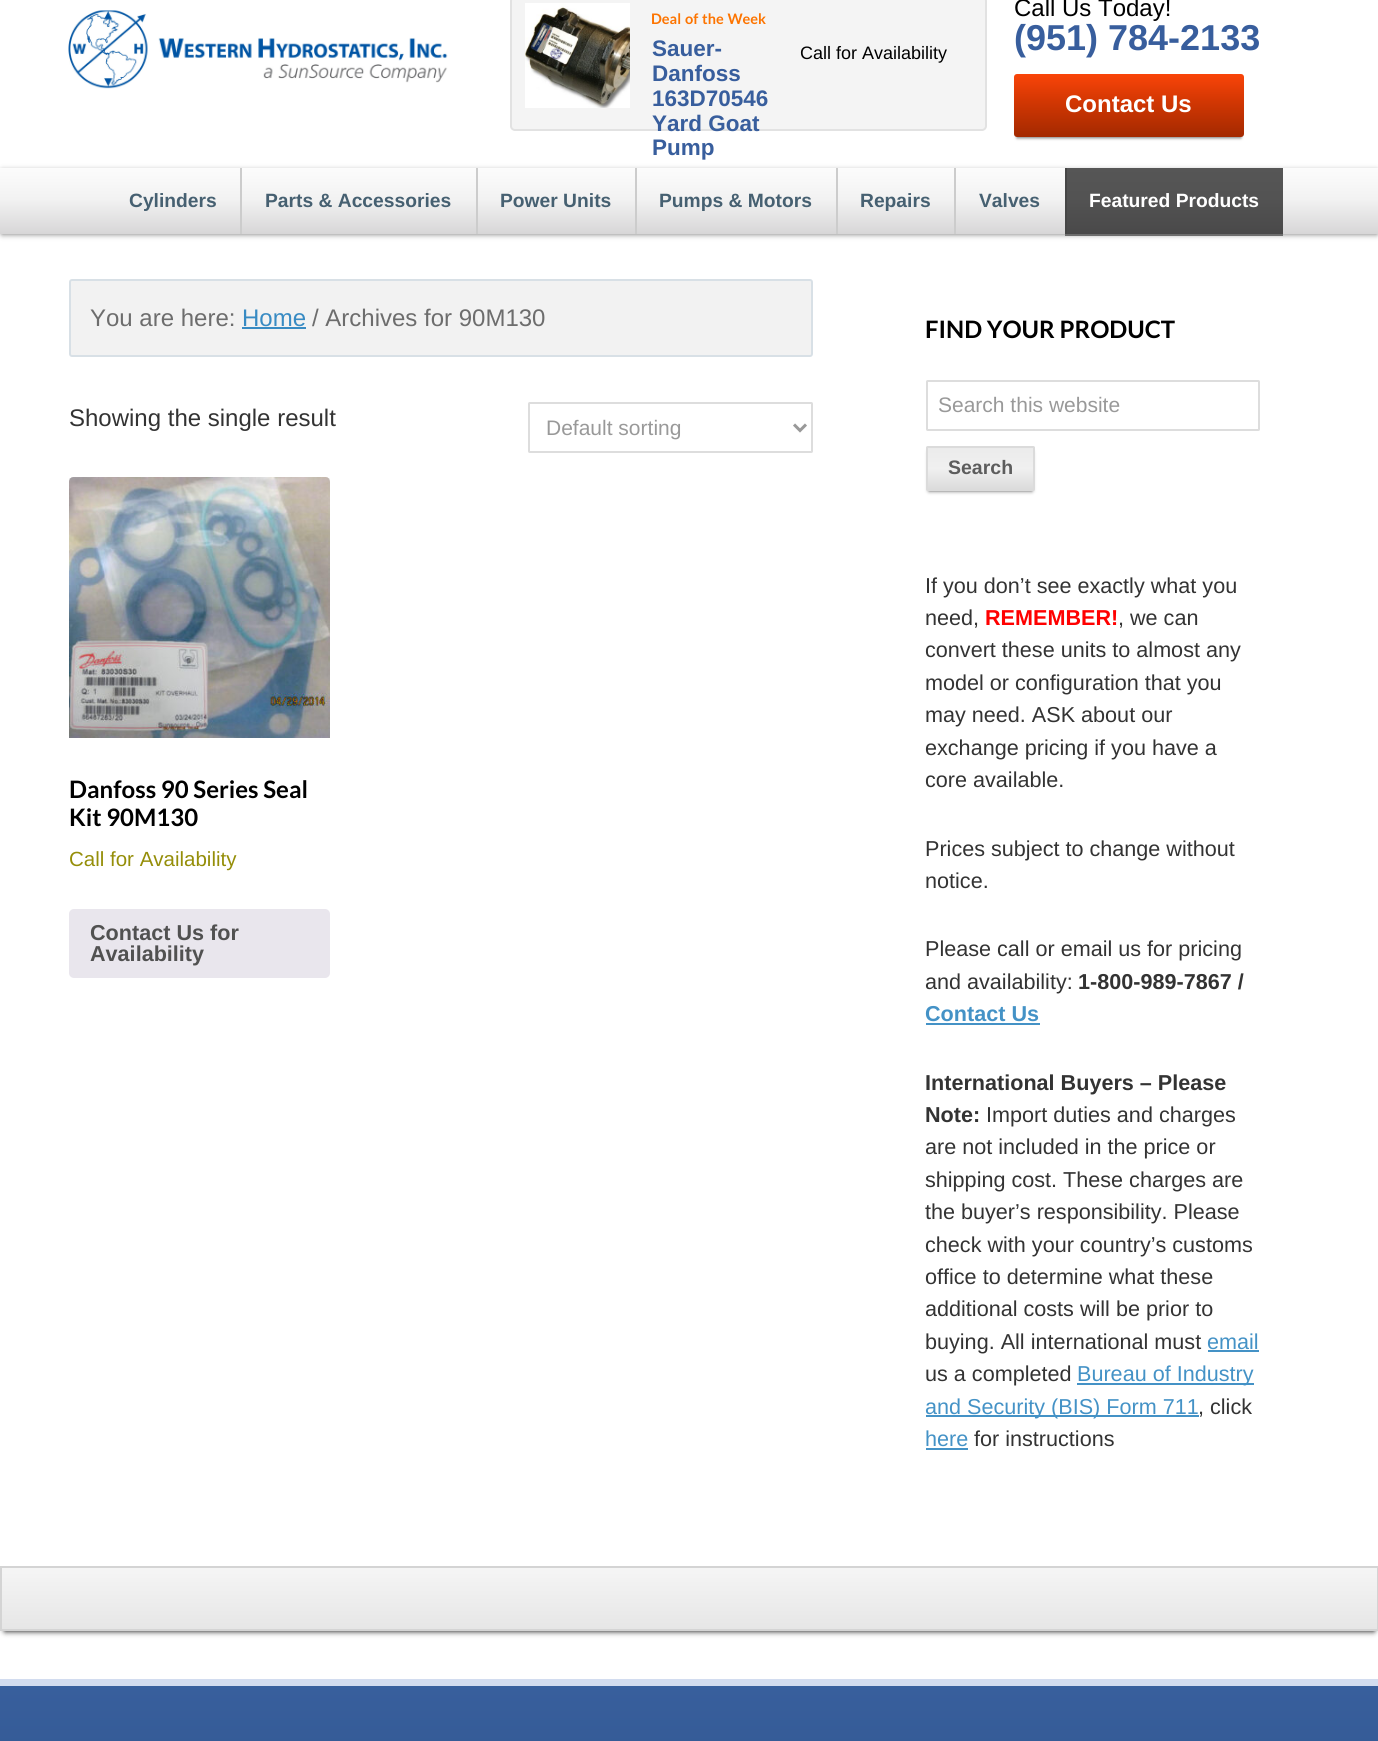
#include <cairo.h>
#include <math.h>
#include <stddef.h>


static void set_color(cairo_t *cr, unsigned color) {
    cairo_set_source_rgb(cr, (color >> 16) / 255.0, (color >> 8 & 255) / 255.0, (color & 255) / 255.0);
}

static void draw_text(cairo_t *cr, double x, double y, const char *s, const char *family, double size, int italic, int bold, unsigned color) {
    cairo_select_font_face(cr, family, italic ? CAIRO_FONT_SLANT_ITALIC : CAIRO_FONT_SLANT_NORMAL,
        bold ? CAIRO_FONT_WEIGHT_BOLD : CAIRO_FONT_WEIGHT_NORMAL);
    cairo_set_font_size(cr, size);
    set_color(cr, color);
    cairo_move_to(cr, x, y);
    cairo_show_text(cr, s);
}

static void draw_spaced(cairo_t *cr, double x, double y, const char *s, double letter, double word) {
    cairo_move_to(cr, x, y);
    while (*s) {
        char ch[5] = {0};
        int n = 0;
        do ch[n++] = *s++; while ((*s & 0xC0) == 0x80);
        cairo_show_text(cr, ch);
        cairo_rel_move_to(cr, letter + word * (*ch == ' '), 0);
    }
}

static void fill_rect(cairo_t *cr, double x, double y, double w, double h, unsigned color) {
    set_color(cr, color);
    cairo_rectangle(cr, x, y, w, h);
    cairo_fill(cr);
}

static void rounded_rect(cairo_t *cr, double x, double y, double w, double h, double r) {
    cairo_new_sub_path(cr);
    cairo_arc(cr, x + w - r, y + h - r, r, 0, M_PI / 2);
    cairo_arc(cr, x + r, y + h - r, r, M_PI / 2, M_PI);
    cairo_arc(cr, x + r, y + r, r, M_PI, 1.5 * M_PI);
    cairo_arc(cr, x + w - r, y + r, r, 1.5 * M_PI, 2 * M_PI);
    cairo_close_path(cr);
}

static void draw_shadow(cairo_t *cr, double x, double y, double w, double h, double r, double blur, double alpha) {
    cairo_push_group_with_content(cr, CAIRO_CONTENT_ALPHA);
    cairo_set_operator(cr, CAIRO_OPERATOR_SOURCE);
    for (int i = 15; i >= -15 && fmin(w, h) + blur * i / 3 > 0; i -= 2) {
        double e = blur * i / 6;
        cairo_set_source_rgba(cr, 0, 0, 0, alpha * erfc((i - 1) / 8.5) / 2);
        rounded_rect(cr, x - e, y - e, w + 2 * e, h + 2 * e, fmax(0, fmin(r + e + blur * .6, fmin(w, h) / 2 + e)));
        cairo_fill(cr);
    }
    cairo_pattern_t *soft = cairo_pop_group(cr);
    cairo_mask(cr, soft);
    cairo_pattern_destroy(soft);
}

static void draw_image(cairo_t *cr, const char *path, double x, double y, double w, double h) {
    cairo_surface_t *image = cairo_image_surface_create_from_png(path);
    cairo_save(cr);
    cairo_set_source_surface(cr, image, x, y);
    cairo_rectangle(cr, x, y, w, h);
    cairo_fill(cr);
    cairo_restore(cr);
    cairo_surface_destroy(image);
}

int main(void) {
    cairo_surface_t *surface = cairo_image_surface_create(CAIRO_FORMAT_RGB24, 1378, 1741);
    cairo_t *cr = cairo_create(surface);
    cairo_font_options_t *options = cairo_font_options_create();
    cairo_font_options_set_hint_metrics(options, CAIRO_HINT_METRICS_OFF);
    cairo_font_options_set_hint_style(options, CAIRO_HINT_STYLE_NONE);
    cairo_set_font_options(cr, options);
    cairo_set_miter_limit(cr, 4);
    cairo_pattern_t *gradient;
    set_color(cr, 0xFFFFFF);
    cairo_paint(cr);
    draw_image(cr, "assets/img1.png", 68, 10, 380, 79);
    set_color(cr, 0xF4F4F4);
    rounded_rect(cr, 511, -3, 475, 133, 4);
    cairo_fill_preserve(cr);
    set_color(cr, 0xE2E2E2);
    cairo_stroke(cr);
    cairo_select_font_face(cr, "Lato", CAIRO_FONT_SLANT_NORMAL, CAIRO_FONT_WEIGHT_BOLD);
    cairo_set_font_size(cr, 14.5);
    set_color(cr, 0xFD7400);
    draw_spaced(cr, 651, 24, "Deal of the Week", 0, 1);
    draw_image(cr, "assets/img2.png", 525, 3, 105, 105);
    draw_text(cr, 652, 56, "Sauer-", "Liberation Sans", 22.5, 0, 1, 0x385E9D);
    draw_text(cr, 652, 81, "Danfoss", "Liberation Sans", 22.5, 0, 1, 0x385E9D);
    draw_text(cr, 652, 106, "163D70546", "Liberation Sans", 22.5, 0, 1, 0x385E9D);
    draw_text(cr, 652, 131, "Yard Goat", "Liberation Sans", 22.5, 0, 1, 0x385E9D);
    draw_text(cr, 652, 155, "Pump", "Liberation Sans", 22.5, 0, 1, 0x385E9D);
    draw_text(cr, 800, 59, "Call for Availability", "Liberation Sans", 18, 0, 0, 0x000000);
    draw_text(cr, 1014, 16, "Call Us Today!", "Liberation Sans", 24, 0, 0, 0x000000);
    draw_text(cr, 1014, 50, "(951) 784-2133", "Liberation Sans", 36, 0, 1, 0x385E9D);
    set_color(cr, 0x777777);
    draw_shadow(cr, 1017, 81, 224, 57, 0, 1.5, 1);
    gradient = cairo_pattern_create_linear(1129, 73, 1129, 137);
    cairo_pattern_add_color_stop_rgba(gradient, 0, 0.984, 0.271, 0.035, 1);
    cairo_pattern_add_color_stop_rgba(gradient, 0.44, 0.827, 0.216, 0.012, 1);
    cairo_pattern_add_color_stop_rgba(gradient, 1, 0.639, 0.161, 0, 1);
    cairo_set_source(cr, gradient);
    cairo_pattern_destroy(gradient);
    rounded_rect(cr, 1014, 74, 230, 63, 3);
    cairo_fill(cr);
    draw_text(cr, 1065, 112, "Contact Us", "Liberation Sans", 24, 0, 1, 0xFFFFFF);
    set_color(cr, 0x6F6F6F);
    draw_shadow(cr, 2, 171, 1375, 63, 0, 3, 1);
    gradient = cairo_pattern_create_linear(689, 168, 689, 234);
    cairo_pattern_add_color_stop_rgba(gradient, 0, 0.988, 0.988, 0.988, 1);
    cairo_pattern_add_color_stop_rgba(gradient, 0.47, 0.949, 0.949, 0.949, 1);
    cairo_pattern_add_color_stop_rgba(gradient, 1, 0.843, 0.839, 0.843, 1);
    cairo_set_source(cr, gradient);
    cairo_pattern_destroy(gradient);
    cairo_rectangle(cr, 0, 168, 1378, 66);
    cairo_fill(cr);
    fill_rect(cr, 240, 168, 2, 66, 0xCCCCCC);
    draw_text(cr, 129, 207, "Cylinders", "Liberation Sans", 19.25, 0, 1, 0x466071);
    fill_rect(cr, 476, 168, 2, 66, 0xCCCCCC);
    draw_text(cr, 265, 207, "Parts & Accessories", "Liberation Sans", 19.25, 0, 1, 0x466071);
    fill_rect(cr, 635, 168, 2, 66, 0xCCCCCC);
    draw_text(cr, 500, 207, "Power Units", "Liberation Sans", 19.25, 0, 1, 0x466071);
    fill_rect(cr, 836, 168, 2, 66, 0xCCCCCC);
    draw_text(cr, 659, 207, "Pumps & Motors", "Liberation Sans", 19.25, 0, 1, 0x466071);
    fill_rect(cr, 954, 168, 2, 66, 0xCCCCCC);
    draw_text(cr, 860, 207, "Repairs", "Liberation Sans", 19.25, 0, 1, 0x466071);
    fill_rect(cr, 1065, 168, 2, 66, 0xCCCCCC);
    draw_text(cr, 979, 207, "Valves", "Liberation Sans", 19.25, 0, 1, 0x466071);
    cairo_set_source_rgba(cr, 0, 0, 0, 0.66);
    cairo_rectangle(cr, 1065, 168, 218, 66);
    cairo_fill(cr);
    fill_rect(cr, 1065, 234, 218, 2, 0x6D6D6D);
    draw_text(cr, 1089, 207, "Featured Products", "Liberation Sans", 19.25, 0, 1, 0xFFFFFF);
    set_color(cr, 0xF2F2F2);
    rounded_rect(cr, 70, 280, 742, 76, 2);
    cairo_fill_preserve(cr);
    set_color(cr, 0xD8E0E6);
    cairo_stroke(cr);
    draw_text(cr, 90, 326, "You are here:", "Liberation Sans", 24, 0, 0, 0x6D6D6D);
    draw_text(cr, 242, 326, "Home", "Liberation Sans", 24, 0, 0, 0x388BC3);
    fill_rect(cr, 242, 327, 64, 2, 0x388BC3);
    draw_text(cr, 312, 326, "/ Archives for 90M130", "Liberation Sans", 24, 0, 0, 0x6D6D6D);
    draw_text(cr, 69, 426, "Showing the single result", "Liberation Sans", 24, 0, 0, 0x333333);
    rounded_rect(cr, 529, 403, 283, 49, 0.5);
    set_color(cr, 0xDDDDDD);
    cairo_stroke(cr);
    cairo_new_path(cr);
    cairo_move_to(cr, 794, 424.5);
    cairo_line_to(cr, 800, 430.5);
    cairo_line_to(cr, 806, 424.5);
    set_color(cr, 0x999999);
    cairo_set_line_width(cr, 3);
    cairo_stroke(cr);
    draw_text(cr, 546, 435, "Default sorting", "Liberation Sans", 21, 0, 0, 0x999999);
    draw_image(cr, "assets/img3.png", 69, 477, 261, 261);
    draw_text(cr, 69, 798, "Danfoss 90 Series Seal", "Lato", 24, 0, 1, 0x000000);
    draw_text(cr, 69, 826, "Kit 90M130", "Lato", 24, 0, 1, 0x000000);
    draw_text(cr, 69, 866, "Call for Availability", "Liberation Sans", 20.5, 0, 0, 0x958E09);
    set_color(cr, 0xE9E6ED);
    rounded_rect(cr, 69, 909, 261, 69, 5);
    cairo_fill(cr);
    draw_text(cr, 90, 940, "Contact Us for", "Liberation Sans", 21.6, 0, 1, 0x515151);
    draw_text(cr, 90, 961, "Availability", "Liberation Sans", 21.6, 0, 1, 0x515151);
    draw_text(cr, 925, 338, "FIND YOUR PRODUCT", "Lato", 24, 0, 1, 0x000000);
    rounded_rect(cr, 927, 381, 332, 49, 0.5);
    set_color(cr, 0xDDDDDD);
    cairo_set_line_width(cr, 2);
    cairo_stroke(cr);
    draw_text(cr, 938, 412, "Search this website", "Liberation Sans", 21, 0, 0, 0x999999);
    set_color(cr, 0x555555);
    draw_shadow(cr, 929, 452, 103, 39, 0, 2, 1);
    gradient = cairo_pattern_create_linear(980, 447, 980, 489);
    cairo_pattern_add_color_stop_rgba(gradient, 0, 0.922, 0.922, 0.922, 1);
    cairo_pattern_add_color_stop_rgba(gradient, 0.52, 0.941, 0.941, 0.941, 1);
    cairo_pattern_add_color_stop_rgba(gradient, 1, 0.859, 0.859, 0.859, 1);
    cairo_set_source(cr, gradient);
    cairo_pattern_destroy(gradient);
    cairo_rectangle(cr, 926, 447, 109, 42);
    cairo_fill(cr);
    rounded_rect(cr, 927, 447, 107, 43, 0.5);
    set_color(cr, 0xDBDBDB);
    cairo_stroke(cr);
    draw_text(cr, 948, 474, "Search", "Liberation Sans", 19.5, 0, 1, 0x5D5D5D);
    draw_text(cr, 925, 593, "If you don’t see exactly what you", "Liberation Sans", 21.6, 0, 0, 0x333333);
    draw_text(cr, 925, 625, "need,", "Liberation Sans", 21.6, 0, 0, 0x333333);
    draw_text(cr, 985, 625, "REMEMBER!", "Liberation Sans", 21.6, 0, 1, 0xFF0000);
    draw_text(cr, 1118, 625, ", we can", "Liberation Sans", 21.6, 0, 0, 0x333333);
    draw_text(cr, 925, 657, "convert these units to almost any", "Liberation Sans", 21.6, 0, 0, 0x333333);
    draw_text(cr, 925, 690, "model or configuration that you", "Liberation Sans", 21.6, 0, 0, 0x333333);
    draw_text(cr, 925, 722, "may need. ASK about our", "Liberation Sans", 21.6, 0, 0, 0x333333);
    draw_text(cr, 925, 755, "exchange pricing if you have a", "Liberation Sans", 21.6, 0, 0, 0x333333);
    draw_text(cr, 925, 787, "core available.", "Liberation Sans", 21.6, 0, 0, 0x333333);
    draw_text(cr, 925, 856, "Prices subject to change without", "Liberation Sans", 21.6, 0, 0, 0x333333);
    draw_text(cr, 925, 888, "notice.", "Liberation Sans", 21.6, 0, 0, 0x333333);
    draw_text(cr, 925, 956, "Please call or email us for pricing", "Liberation Sans", 21.6, 0, 0, 0x333333);
    draw_text(cr, 925, 989, "and availability:", "Liberation Sans", 21.6, 0, 0, 0x333333);
    draw_text(cr, 1078, 989, "1-800-989-7867 /", "Liberation Sans", 21.6, 0, 1, 0x333333);
    draw_text(cr, 925, 1021, "Contact Us", "Liberation Sans", 21.6, 0, 1, 0x4492C6);
    fill_rect(cr, 926, 1023, 114, 2, 0x4492C6);
    draw_text(cr, 925, 1090, "International Buyers – Please", "Liberation Sans", 21.6, 0, 1, 0x333333);
    draw_text(cr, 925, 1122, "Note:", "Liberation Sans", 21.6, 0, 1, 0x333333);
    draw_text(cr, 986, 1122, "Import duties and charges", "Liberation Sans", 21.6, 0, 0, 0x333333);
    draw_text(cr, 925, 1154, "are not included in the price or", "Liberation Sans", 21.6, 0, 0, 0x333333);
    draw_text(cr, 925, 1187, "shipping cost. These charges are", "Liberation Sans", 21.6, 0, 0, 0x333333);
    draw_text(cr, 925, 1219, "the buyer’s responsibility. Please", "Liberation Sans", 21.6, 0, 0, 0x333333);
    draw_text(cr, 925, 1252, "check with your country’s customs", "Liberation Sans", 21.6, 0, 0, 0x333333);
    draw_text(cr, 925, 1284, "office to determine what these", "Liberation Sans", 21.6, 0, 0, 0x333333);
    draw_text(cr, 925, 1316, "additional costs will be prior to", "Liberation Sans", 21.6, 0, 0, 0x333333);
    draw_text(cr, 925, 1349, "buying. All international must", "Liberation Sans", 21.6, 0, 0, 0x333333);
    draw_text(cr, 1207, 1349, "email", "Liberation Sans", 21.6, 0, 0, 0x4492C6);
    fill_rect(cr, 1208, 1350, 51, 2, 0x4492C6);
    draw_text(cr, 925, 1381, "us a completed", "Liberation Sans", 21.6, 0, 0, 0x333333);
    fill_rect(cr, 1077, 1383, 177, 2, 0x4492C6);
    draw_text(cr, 1077, 1381, "Bureau of Industry", "Liberation Sans", 21.6, 0, 0, 0x4492C6);
    fill_rect(cr, 926, 1415, 273, 2, 0x4492C6);
    draw_text(cr, 925, 1414, "and Security (BIS) Form 711", "Liberation Sans", 21.6, 0, 0, 0x4492C6);
    draw_text(cr, 1198, 1414, ", click", "Liberation Sans", 21.6, 0, 0, 0x333333);
    draw_text(cr, 925, 1446, "here", "Liberation Sans", 21.6, 0, 0, 0x4492C6);
    fill_rect(cr, 926, 1448, 42, 2, 0x4492C6);
    draw_text(cr, 974, 1446, "for instructions", "Liberation Sans", 21.6, 0, 0, 0x333333);
    set_color(cr, 0x000000);
    draw_shadow(cr, 5, 1575, 1369, 56, 0, 3, 1);
    gradient = cairo_pattern_create_linear(689, 1568, 689, 1629);
    cairo_pattern_add_color_stop_rgba(gradient, 0, 0.961, 0.961, 0.961, 1);
    cairo_pattern_add_color_stop_rgba(gradient, 1, 0.902, 0.902, 0.902, 1);
    cairo_set_source(cr, gradient);
    cairo_pattern_destroy(gradient);
    cairo_rectangle(cr, 2, 1568, 1375, 61);
    cairo_fill(cr);
    cairo_rectangle(cr, 1, 1567, 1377, 63);
    set_color(cr, 0xD4D4D4);
    cairo_stroke(cr);
    gradient = cairo_pattern_create_linear(689, 1686, 689, 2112);
    cairo_pattern_add_color_stop_rgba(gradient, 0, 0.22, 0.373, 0.616, 1);
    cairo_pattern_add_color_stop_rgba(gradient, 1, 0.137, 0.263, 0.439, 1);
    cairo_set_source(cr, gradient);
    cairo_pattern_destroy(gradient);
    cairo_rectangle(cr, 0, 1686, 1378, 55);
    cairo_fill(cr);
    fill_rect(cr, 0, 1679, 1378, 7, 0xD2DCEF);
    cairo_surface_write_to_png(surface, "output.png");
    cairo_font_options_destroy(options);
    cairo_destroy(cr);
    cairo_surface_destroy(surface);
    return 0;
}
